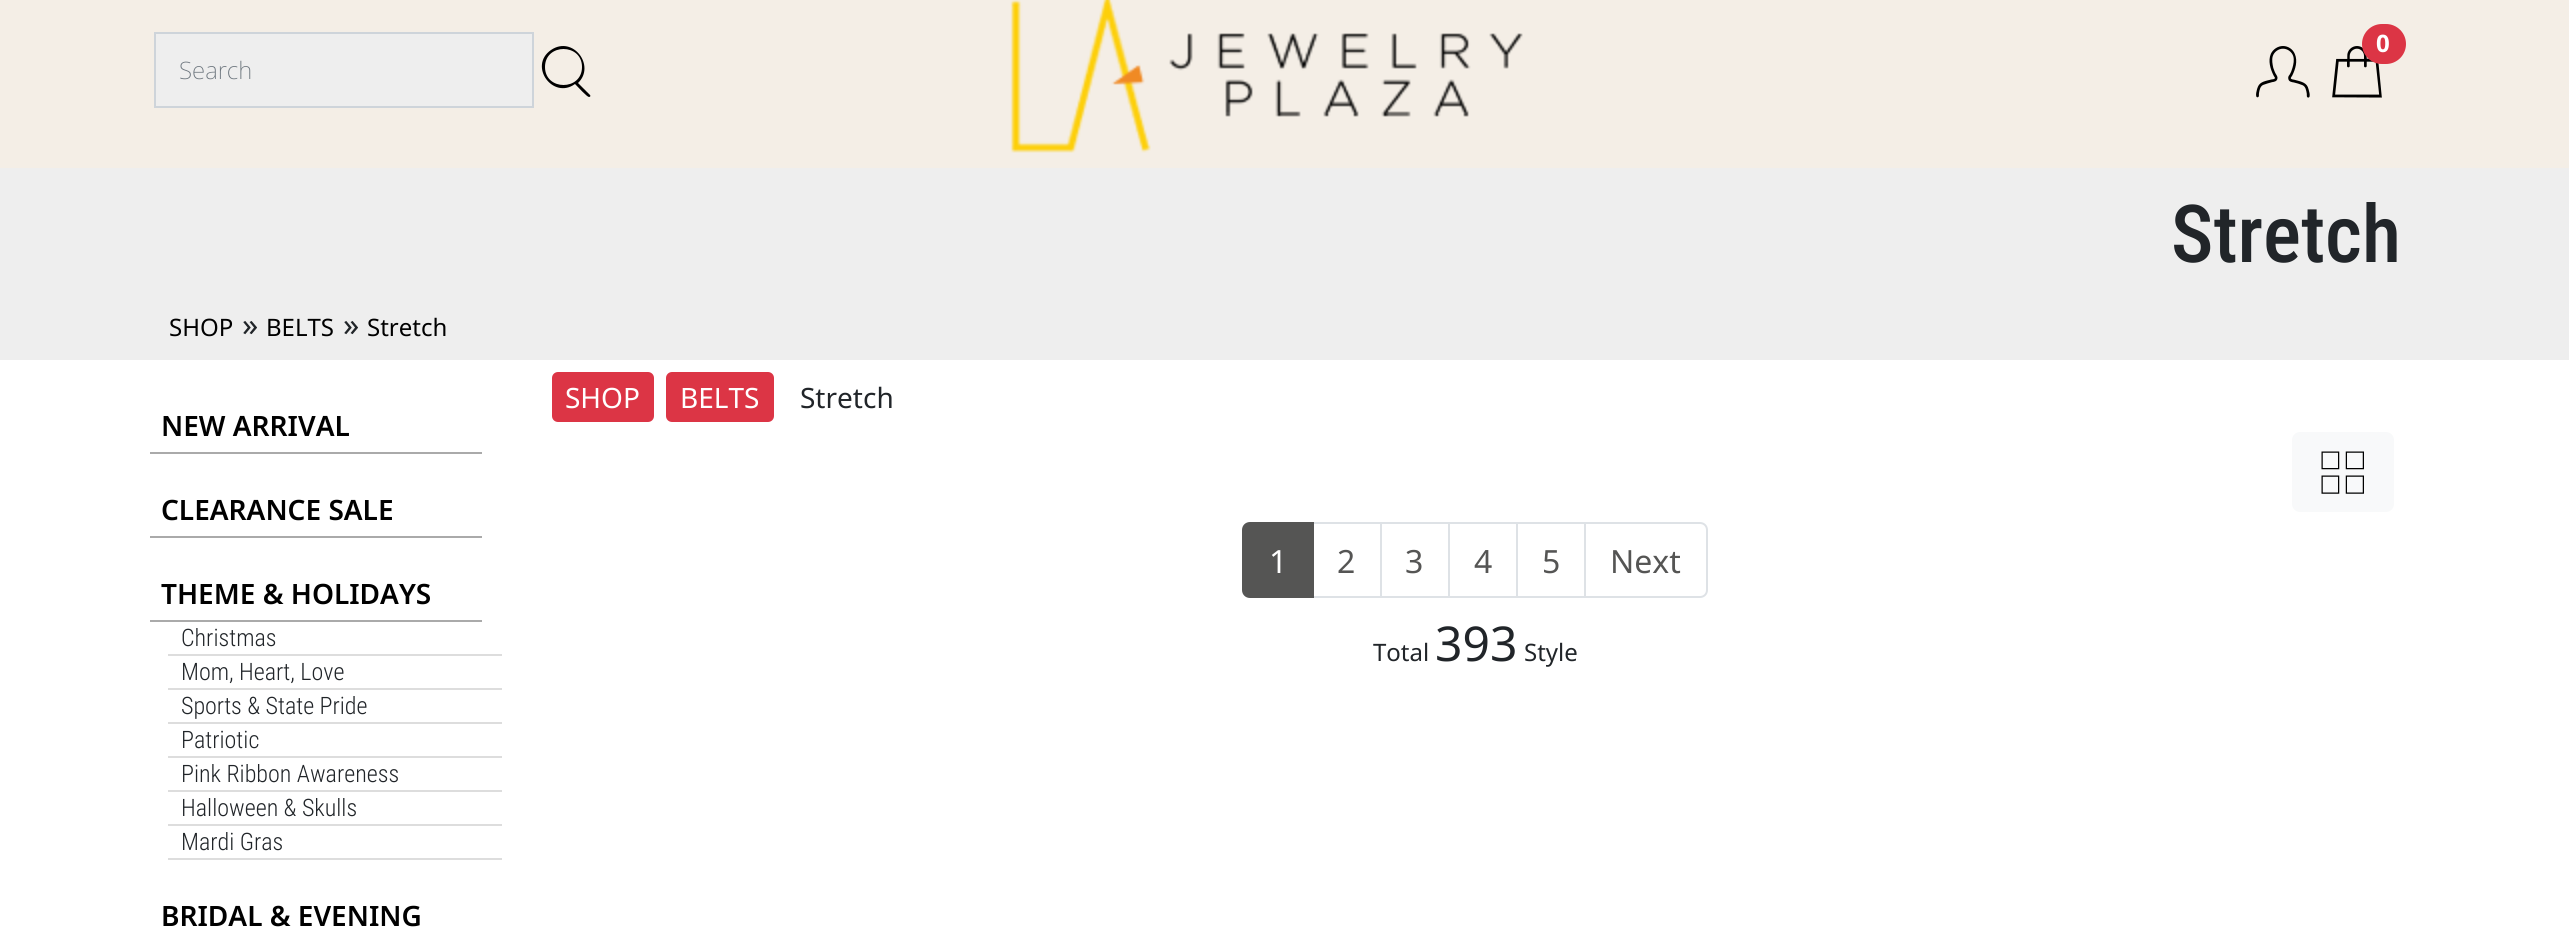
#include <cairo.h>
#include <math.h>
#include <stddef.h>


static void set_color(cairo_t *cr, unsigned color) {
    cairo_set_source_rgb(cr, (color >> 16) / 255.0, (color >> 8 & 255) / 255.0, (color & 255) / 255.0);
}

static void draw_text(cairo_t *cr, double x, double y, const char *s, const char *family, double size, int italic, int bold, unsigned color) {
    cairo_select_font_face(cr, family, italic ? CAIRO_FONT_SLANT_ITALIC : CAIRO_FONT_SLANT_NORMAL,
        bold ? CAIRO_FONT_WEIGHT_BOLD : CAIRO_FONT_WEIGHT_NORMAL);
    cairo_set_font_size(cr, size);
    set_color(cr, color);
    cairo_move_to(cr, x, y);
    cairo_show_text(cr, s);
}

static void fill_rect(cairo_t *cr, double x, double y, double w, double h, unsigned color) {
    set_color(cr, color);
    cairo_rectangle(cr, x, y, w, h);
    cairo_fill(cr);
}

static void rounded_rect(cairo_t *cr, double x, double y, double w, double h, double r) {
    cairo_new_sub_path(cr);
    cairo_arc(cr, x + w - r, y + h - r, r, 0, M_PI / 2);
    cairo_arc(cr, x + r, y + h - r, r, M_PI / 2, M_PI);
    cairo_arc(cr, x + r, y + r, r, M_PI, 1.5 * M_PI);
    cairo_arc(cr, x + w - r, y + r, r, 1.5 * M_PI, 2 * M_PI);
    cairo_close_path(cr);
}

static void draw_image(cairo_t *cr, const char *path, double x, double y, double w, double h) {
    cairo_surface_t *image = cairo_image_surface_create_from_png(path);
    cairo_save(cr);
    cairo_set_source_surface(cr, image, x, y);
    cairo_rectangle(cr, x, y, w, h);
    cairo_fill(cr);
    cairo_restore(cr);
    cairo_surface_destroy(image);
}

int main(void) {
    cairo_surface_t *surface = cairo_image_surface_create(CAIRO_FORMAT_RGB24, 2569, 932);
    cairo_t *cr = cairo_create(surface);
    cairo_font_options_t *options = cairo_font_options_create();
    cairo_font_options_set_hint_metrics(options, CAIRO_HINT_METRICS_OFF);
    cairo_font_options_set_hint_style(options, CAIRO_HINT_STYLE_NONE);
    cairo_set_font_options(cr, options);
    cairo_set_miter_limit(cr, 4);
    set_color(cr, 0xFFFFFF);
    cairo_paint(cr);
    fill_rect(cr, 0, 0, 2569, 168, 0xF4EEE6);
    draw_image(cr, "assets/img1.png", 1010, 0, 513, 153);
    draw_image(cr, "assets/img2.png", 2332, 46, 50, 52);
    set_color(cr, 0xDC3545);
    rounded_rect(cr, 2362, 24, 44, 40, 20);
    cairo_fill(cr);
    draw_text(cr, 2376, 52, "0", "Noto Sans", 24, 0, 1, 0xFFFFFF);
    draw_image(cr, "assets/img3.png", 2256, 46, 54, 52);
    set_color(cr, 0xEEEEEE);
    cairo_rectangle(cr, 155, 33, 378, 74);
    cairo_fill_preserve(cr);
    set_color(cr, 0xCED4DA);
    cairo_stroke(cr);
    draw_text(cr, 179, 79, "Search", "Noto Sans ExtraLight", 24, 0, 0, 0x6C757D);
    set_color(cr, 0x000000);
    cairo_new_path(cr);
    cairo_move_to(cr, 590, 95);
    cairo_line_to(cr, 578, 83);
    cairo_curve_to(cr, 596, 66, 573, 35, 551, 50);
    cairo_curve_to(cr, 528, 66, 553, 100, 575, 84);
    cairo_curve_to(cr, 578, 87, 587, 97, 589, 97);
    cairo_curve_to(cr, 590, 97, 591, 96, 590, 95);
    cairo_close_path(cr);
    cairo_move_to(cr, 545, 67);
    cairo_curve_to(cr, 545, 43, 582, 43, 582, 67);
    cairo_curve_to(cr, 582, 91, 545, 91, 545, 67);
    cairo_close_path(cr);
    cairo_fill(cr);
    fill_rect(cr, 0, 168, 2569, 192, 0xEEEEEE);
    draw_text(cr, 2171, 262, "Stretch", "Roboto Condensed Medium", 80, 0, 0, 0x212529);
    draw_text(cr, 169, 336, "SHOP", "Noto Sans", 24, 0, 0, 0x000000);
    draw_text(cr, 242, 336, "»", "Noto Sans", 32, 0, 0, 0x212529);
    draw_text(cr, 266, 336, "BELTS", "Noto Sans", 24, 0, 0, 0x000000);
    draw_text(cr, 343, 336, "»", "Noto Sans", 32, 0, 0, 0x212529);
    draw_text(cr, 367, 336, "Stretch", "Noto Sans", 24, 0, 0, 0x000000);
    fill_rect(cr, 150, 452, 332, 2, 0xAAAAAA);
    draw_text(cr, 161, 436, "NEW ARRIVAL", "Noto Sans SemiBold", 28, 0, 0, 0x000000);
    fill_rect(cr, 150, 536, 332, 2, 0xAAAAAA);
    draw_text(cr, 161, 520, "CLEARANCE SALE", "Noto Sans SemiBold", 28, 0, 0, 0x000000);
    fill_rect(cr, 150, 620, 332, 2, 0xAAAAAA);
    draw_text(cr, 161, 604, "THEME & HOLIDAYS", "Noto Sans SemiBold", 28, 0, 0, 0x000000);
    fill_rect(cr, 168, 654, 334, 2, 0xDDDDDD);
    draw_text(cr, 181, 646, "Christmas", "Roboto Condensed Light", 24, 0, 0, 0x212529);
    fill_rect(cr, 168, 688, 334, 2, 0xDDDDDD);
    draw_text(cr, 181, 680, "Mom, Heart, Love", "Roboto Condensed Light", 24, 0, 0, 0x212529);
    fill_rect(cr, 168, 722, 334, 2, 0xDDDDDD);
    draw_text(cr, 181, 714, "Sports & State Pride", "Roboto Condensed Light", 24, 0, 0, 0x212529);
    fill_rect(cr, 168, 756, 334, 2, 0xDDDDDD);
    draw_text(cr, 181, 748, "Patriotic", "Roboto Condensed Light", 24, 0, 0, 0x212529);
    fill_rect(cr, 168, 790, 334, 2, 0xDDDDDD);
    draw_text(cr, 181, 782, "Pink Ribbon Awareness", "Roboto Condensed Light", 24, 0, 0, 0x212529);
    fill_rect(cr, 168, 824, 334, 2, 0xDDDDDD);
    draw_text(cr, 181, 816, "Halloween & Skulls", "Roboto Condensed Light", 24, 0, 0, 0x212529);
    fill_rect(cr, 168, 858, 334, 2, 0xDDDDDD);
    draw_text(cr, 181, 850, "Mardi Gras", "Roboto Condensed Light", 24, 0, 0, 0x212529);
    draw_text(cr, 161, 926, "BRIDAL & EVENING", "Noto Sans SemiBold", 28, 0, 0, 0x000000);
    set_color(cr, 0xDC3545);
    rounded_rect(cr, 551, 371, 104, 52, 7);
    cairo_fill_preserve(cr);
    set_color(cr, 0xFFFFFF);
    cairo_stroke(cr);
    draw_text(cr, 565, 408, "SHOP", "Noto Sans", 28, 0, 0, 0xFFFFFF);
    set_color(cr, 0xDC3545);
    rounded_rect(cr, 665, 371, 110, 52, 7);
    cairo_fill_preserve(cr);
    set_color(cr, 0xFFFFFF);
    cairo_stroke(cr);
    draw_text(cr, 680, 408, "BELTS", "Noto Sans", 28, 0, 0, 0xFFFFFF);
    draw_text(cr, 800, 408, "Stretch", "Noto Sans", 28, 0, 0, 0x212529);
    set_color(cr, 0xF8F9FA);
    rounded_rect(cr, 2292, 432, 102, 80, 8);
    cairo_fill(cr);
    draw_image(cr, "assets/img4.png", 2321, 451, 43, 43);
    cairo_rectangle(cr, 1313, 523, 68, 74);
    set_color(cr, 0xDEE2E6);
    cairo_stroke(cr);
    set_color(cr, 0x555554);
    cairo_new_path(cr);
    cairo_move_to(cr, 1250, 523);
    cairo_line_to(cr, 1313, 523);
    cairo_line_to(cr, 1313, 597);
    cairo_line_to(cr, 1250, 597);
    cairo_curve_to(cr, 1246, 597, 1243, 594, 1243, 590);
    cairo_line_to(cr, 1243, 530);
    cairo_curve_to(cr, 1243, 526, 1246, 523, 1250, 523);
    cairo_close_path(cr);
    cairo_fill_preserve(cr);
    cairo_stroke(cr);
    draw_text(cr, 1269, 573, "1", "Noto Sans", 32, 0, 0, 0xFFFFFF);
    draw_text(cr, 1337, 573, "2", "Noto Sans", 32, 0, 0, 0x555554);
    cairo_rectangle(cr, 1381, 523, 68, 74);
    set_color(cr, 0xDEE2E6);
    cairo_stroke(cr);
    draw_text(cr, 1405, 573, "3", "Noto Sans", 32, 0, 0, 0x555554);
    cairo_rectangle(cr, 1449, 523, 68, 74);
    set_color(cr, 0xDEE2E6);
    cairo_stroke(cr);
    draw_text(cr, 1474, 573, "4", "Noto Sans", 32, 0, 0, 0x555554);
    cairo_rectangle(cr, 1517, 523, 68, 74);
    set_color(cr, 0xDEE2E6);
    cairo_stroke(cr);
    draw_text(cr, 1542, 573, "5", "Noto Sans", 32, 0, 0, 0x555554);
    set_color(cr, 0xFFFFFF);
    cairo_new_path(cr);
    cairo_move_to(cr, 1585, 523);
    cairo_line_to(cr, 1700, 523);
    cairo_curve_to(cr, 1704, 523, 1707, 526, 1707, 530);
    cairo_line_to(cr, 1707, 590);
    cairo_curve_to(cr, 1707, 594, 1704, 597, 1700, 597);
    cairo_line_to(cr, 1585, 597);
    cairo_close_path(cr);
    cairo_fill_preserve(cr);
    set_color(cr, 0xDEE2E6);
    cairo_stroke(cr);
    draw_text(cr, 1610, 573, "Next", "Noto Sans", 32, 0, 0, 0x555554);
    draw_text(cr, 1373, 661, "Total", "Noto Sans", 24, 0, 0, 0x212529);
    draw_text(cr, 1435, 661, "393", "Noto Sans", 48, 0, 0, 0x212529);
    draw_text(cr, 1524, 661, "Style", "Noto Sans", 24, 0, 0, 0x212529);
    cairo_surface_write_to_png(surface, "output.png");
    cairo_font_options_destroy(options);
    cairo_destroy(cr);
    cairo_surface_destroy(surface);
    return 0;
}
